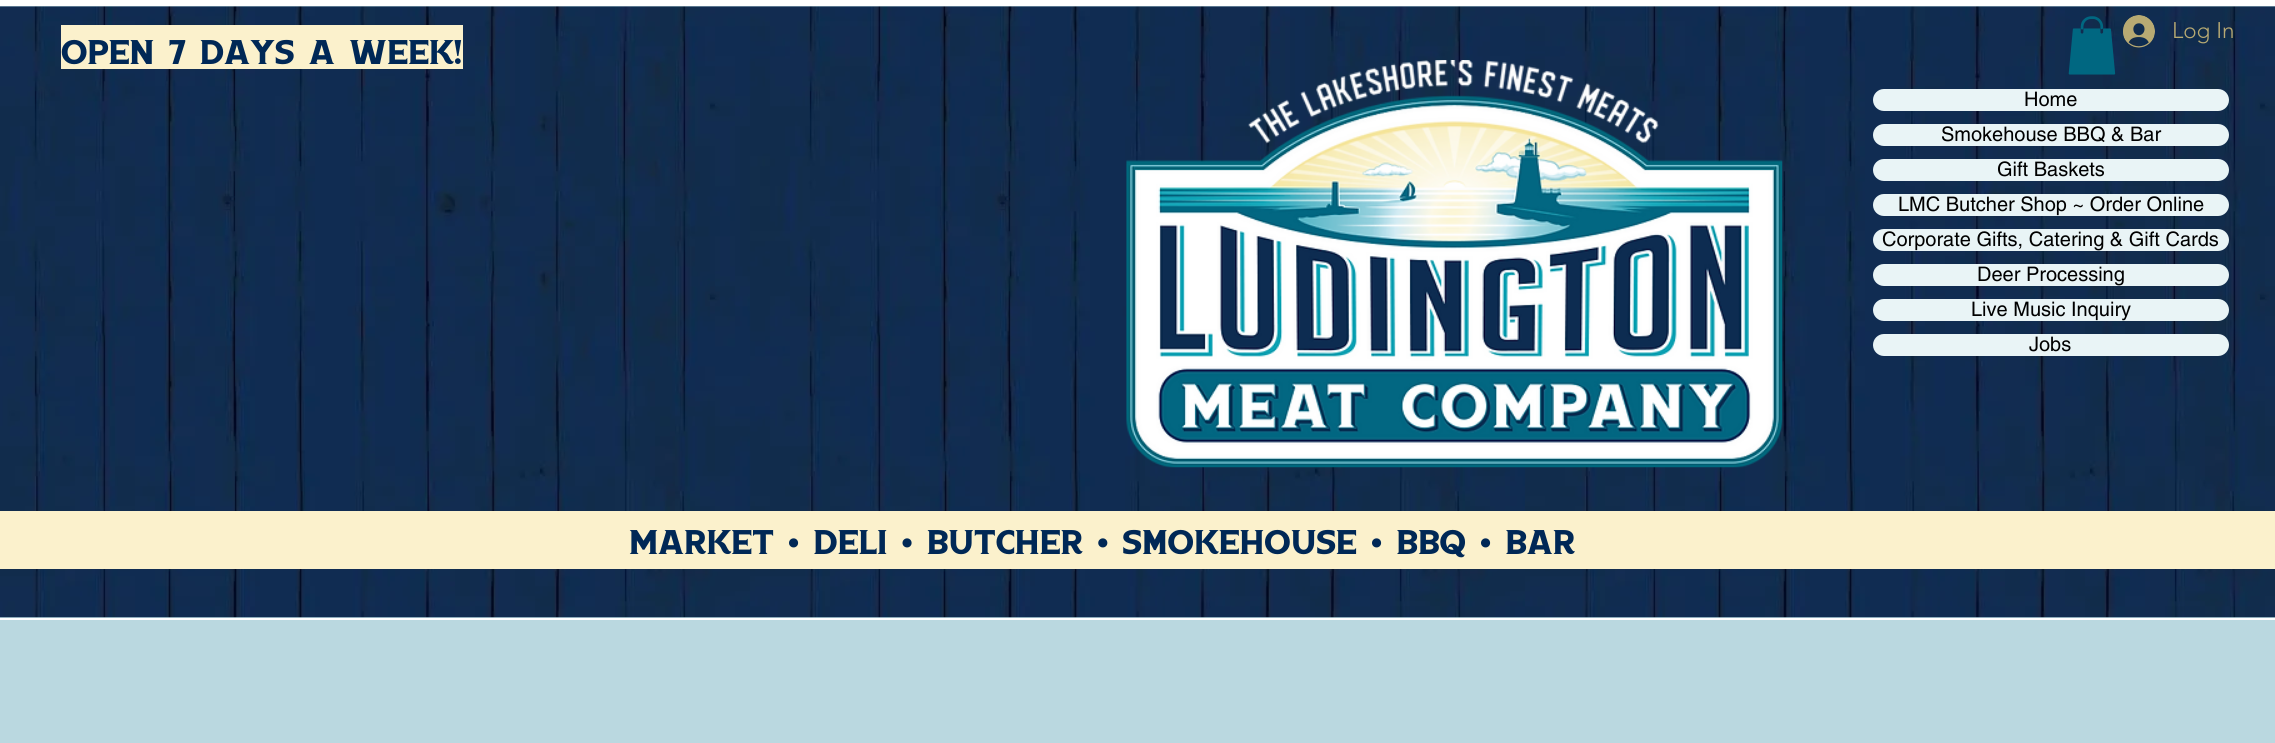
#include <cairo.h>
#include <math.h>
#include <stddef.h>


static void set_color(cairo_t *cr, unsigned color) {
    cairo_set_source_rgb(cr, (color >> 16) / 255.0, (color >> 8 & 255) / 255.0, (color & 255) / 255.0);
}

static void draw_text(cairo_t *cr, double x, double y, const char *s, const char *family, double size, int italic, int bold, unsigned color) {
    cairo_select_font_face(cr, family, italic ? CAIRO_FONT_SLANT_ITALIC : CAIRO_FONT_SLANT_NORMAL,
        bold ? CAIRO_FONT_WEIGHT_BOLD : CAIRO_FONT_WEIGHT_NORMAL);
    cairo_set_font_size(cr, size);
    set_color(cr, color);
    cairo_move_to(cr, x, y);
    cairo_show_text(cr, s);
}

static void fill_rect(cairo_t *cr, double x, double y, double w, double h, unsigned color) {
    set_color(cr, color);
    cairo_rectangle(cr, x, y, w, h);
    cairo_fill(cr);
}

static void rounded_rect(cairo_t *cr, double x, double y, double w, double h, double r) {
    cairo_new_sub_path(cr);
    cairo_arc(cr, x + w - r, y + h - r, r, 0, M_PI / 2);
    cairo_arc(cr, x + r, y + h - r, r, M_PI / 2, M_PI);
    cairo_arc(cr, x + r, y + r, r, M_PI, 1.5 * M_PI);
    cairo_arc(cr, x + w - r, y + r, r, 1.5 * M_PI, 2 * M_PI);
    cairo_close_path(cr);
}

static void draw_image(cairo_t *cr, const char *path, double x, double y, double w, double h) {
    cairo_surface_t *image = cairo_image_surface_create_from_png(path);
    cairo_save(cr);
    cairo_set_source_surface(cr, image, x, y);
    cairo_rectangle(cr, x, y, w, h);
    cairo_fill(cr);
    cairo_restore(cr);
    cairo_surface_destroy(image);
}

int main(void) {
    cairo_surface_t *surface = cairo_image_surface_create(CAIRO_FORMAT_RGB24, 2275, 743);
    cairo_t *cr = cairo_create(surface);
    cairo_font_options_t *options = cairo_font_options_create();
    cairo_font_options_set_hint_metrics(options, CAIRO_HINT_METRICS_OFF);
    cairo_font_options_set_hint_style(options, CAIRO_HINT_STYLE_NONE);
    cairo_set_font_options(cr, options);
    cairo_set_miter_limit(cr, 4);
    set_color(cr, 0xFFFFFF);
    cairo_paint(cr);
    fill_rect(cr, 0, 6, 2275, 612, 0xBAD8E0);
    draw_image(cr, "assets/img1.png", 0, 6, 2275, 612);
    fill_rect(cr, 61, 25, 402, 44, 0xFBF1CC);
    draw_text(cr, 61, 64, "open 7 days a week!", "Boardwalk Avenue", 43.75, 0, 0, 0x002856);
    draw_image(cr, "assets/img2.png", 2068, 16, 48, 59);
    draw_image(cr, "assets/img3.png", 2123, 15, 32, 33);
    draw_text(cr, 2172, 38, "Log In", "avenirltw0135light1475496 Light", 22.5, 0, 0, 0xB8AA73);
    draw_image(cr, "assets/img4.png", 1126, 60, 657, 408);
    set_color(cr, 0xE9F4F6);
    rounded_rect(cr, 1873, 89, 356, 22, 11);
    cairo_fill(cr);
    draw_text(cr, 2024, 106, "Home", "helvetica", 20, 0, 0, 0x000000);
    set_color(cr, 0xE9F4F6);
    rounded_rect(cr, 1873, 124, 356, 22, 11);
    cairo_fill(cr);
    draw_text(cr, 1941, 141, "Smokehouse BBQ & Bar", "helvetica", 20, 0, 0, 0x000000);
    set_color(cr, 0xE9F4F6);
    rounded_rect(cr, 1873, 159, 356, 22, 11);
    cairo_fill(cr);
    draw_text(cr, 1997, 176, "Gift Baskets", "helvetica", 20, 0, 0, 0x000000);
    set_color(cr, 0xE9F4F6);
    rounded_rect(cr, 1873, 194, 356, 22, 11);
    cairo_fill(cr);
    draw_text(cr, 1898, 211, "LMC Butcher Shop ~ Order Online", "helvetica", 20, 0, 0, 0x000000);
    set_color(cr, 0xE9F4F6);
    rounded_rect(cr, 1873, 229, 356, 22, 11);
    cairo_fill(cr);
    draw_text(cr, 1882, 246, "Corporate Gifts, Catering & Gift Cards", "helvetica", 20, 0, 0, 0x000000);
    set_color(cr, 0xE9F4F6);
    rounded_rect(cr, 1873, 264, 356, 22, 11);
    cairo_fill(cr);
    draw_text(cr, 1977, 281, "Deer Processing", "helvetica", 20, 0, 0, 0x000000);
    set_color(cr, 0xE9F4F6);
    rounded_rect(cr, 1873, 299, 356, 22, 11);
    cairo_fill(cr);
    draw_text(cr, 1971, 316, "Live Music Inquiry", "helvetica", 20, 0, 0, 0x000000);
    set_color(cr, 0xE9F4F6);
    rounded_rect(cr, 1873, 334, 356, 22, 11);
    cairo_fill(cr);
    draw_text(cr, 2029, 351, "Jobs", "helvetica", 20, 0, 0, 0x000000);
    fill_rect(cr, 0, 511, 2275, 58, 0xFBF1CC);
    draw_text(cr, 629, 554, "Market • Deli • Butcher • Smokehouse • BBQ • Bar", "Boardwalk Avenue", 43.75, 0, 0, 0x002856);
    fill_rect(cr, 0, 620, 2275, 123, 0xBAD8E0);
    cairo_surface_write_to_png(surface, "output.png");
    cairo_font_options_destroy(options);
    cairo_destroy(cr);
    cairo_surface_destroy(surface);
    return 0;
}
